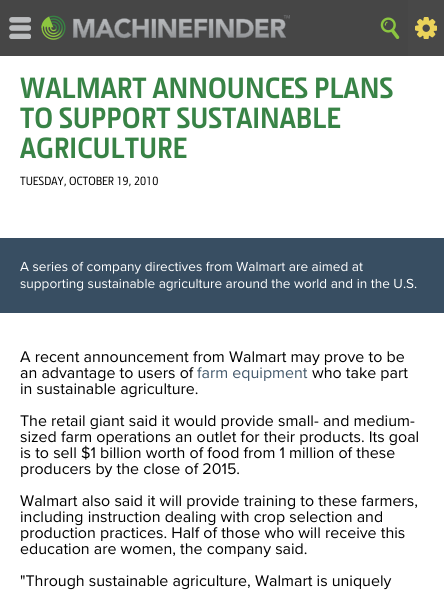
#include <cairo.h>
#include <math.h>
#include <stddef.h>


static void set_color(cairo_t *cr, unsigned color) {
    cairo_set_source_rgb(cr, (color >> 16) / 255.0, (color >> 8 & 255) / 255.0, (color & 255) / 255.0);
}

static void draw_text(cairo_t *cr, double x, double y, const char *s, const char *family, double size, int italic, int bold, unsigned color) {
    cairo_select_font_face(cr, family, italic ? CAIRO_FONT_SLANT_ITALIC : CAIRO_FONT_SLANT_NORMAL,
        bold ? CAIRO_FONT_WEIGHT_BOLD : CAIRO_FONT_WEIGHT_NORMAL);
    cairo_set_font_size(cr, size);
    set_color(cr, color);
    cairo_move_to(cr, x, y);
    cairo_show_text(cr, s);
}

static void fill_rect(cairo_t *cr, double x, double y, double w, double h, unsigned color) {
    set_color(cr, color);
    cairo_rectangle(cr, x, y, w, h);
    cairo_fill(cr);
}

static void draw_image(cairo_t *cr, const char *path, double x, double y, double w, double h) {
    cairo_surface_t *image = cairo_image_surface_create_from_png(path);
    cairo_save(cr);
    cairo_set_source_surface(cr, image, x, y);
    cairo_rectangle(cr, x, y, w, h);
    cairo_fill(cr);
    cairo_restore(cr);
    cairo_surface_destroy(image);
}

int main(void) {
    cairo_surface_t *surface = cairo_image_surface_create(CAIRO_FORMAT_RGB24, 444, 598);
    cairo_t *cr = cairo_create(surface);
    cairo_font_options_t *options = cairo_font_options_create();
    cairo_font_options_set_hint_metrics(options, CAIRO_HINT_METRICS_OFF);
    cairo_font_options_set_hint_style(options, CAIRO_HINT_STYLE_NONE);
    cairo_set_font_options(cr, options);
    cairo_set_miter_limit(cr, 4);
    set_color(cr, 0xFFFFFF);
    cairo_paint(cr);
    fill_rect(cr, 0, 0, 408, 56, 0x464646);
    draw_image(cr, "assets/img1.png", 9, 17, 22, 22);
    draw_image(cr, "assets/img2.png", 41, 15, 249, 25);
    draw_image(cr, "assets/img3.png", 380, 17, 20, 22);
    fill_rect(cr, 408, 0, 36, 56, 0x484848);
    draw_image(cr, "assets/img4.png", 415, 17, 22, 22);
    draw_text(cr, 20, 98, "WALMART ANNOUNCES PLANS", "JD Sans", 29.6, 0, 1, 0x388346);
    draw_text(cr, 20, 128, "TO SUPPORT SUSTAINABLE", "JD Sans", 29.6, 0, 1, 0x388346);
    draw_text(cr, 20, 158, "AGRICULTURE", "JD Sans", 29.6, 0, 1, 0x388346);
    draw_text(cr, 20, 185, "TUESDAY, OCTOBER 19, 2010", "JD Sans", 12, 0, 0, 0x000000);
    fill_rect(cr, 0, 238, 444, 75, 0x384E62);
    draw_text(cr, 20, 271, "A series of company directives from Walmart are aimed at", "Proxima Nova", 13.6, 0, 0, 0xFFFFFF);
    draw_text(cr, 20, 288, "supporting sustainable agriculture around the world and in the U.S.", "Proxima Nova", 13.6, 0, 0, 0xFFFFFF);
    draw_text(cr, 20, 362, "A recent announcement from Walmart may prove to be", "Proxima Nova", 16, 0, 0, 0x000000);
    draw_text(cr, 20, 378, "an advantage to users of", "Proxima Nova", 16, 0, 0, 0x000000);
    draw_text(cr, 197, 378, "farm equipment", "Proxima Nova", 16, 0, 0, 0x42586B);
    draw_text(cr, 312, 378, "who take part", "Proxima Nova", 16, 0, 0, 0x000000);
    draw_text(cr, 20, 394, "in sustainable agriculture.", "Proxima Nova", 16, 0, 0, 0x000000);
    draw_text(cr, 20, 426, "The retail giant said it would provide small- and medium-", "Proxima Nova", 16, 0, 0, 0x000000);
    draw_text(cr, 20, 442, "sized farm operations an outlet for their products. Its goal", "Proxima Nova", 16, 0, 0, 0x000000);
    draw_text(cr, 20, 458, "is to sell $1 billion worth of food from 1 million of these", "Proxima Nova", 16, 0, 0, 0x000000);
    draw_text(cr, 20, 474, "producers by the close of 2015.", "Proxima Nova", 16, 0, 0, 0x000000);
    draw_text(cr, 20, 506, "Walmart also said it will provide training to these farmers,", "Proxima Nova", 16, 0, 0, 0x000000);
    draw_text(cr, 20, 522, "including instruction dealing with crop selection and", "Proxima Nova", 16, 0, 0, 0x000000);
    draw_text(cr, 20, 538, "production practices. Half of those who will receive this", "Proxima Nova", 16, 0, 0, 0x000000);
    draw_text(cr, 20, 554, "education are women, the company said.", "Proxima Nova", 16, 0, 0, 0x000000);
    draw_text(cr, 20, 586, "\"Through sustainable agriculture, Walmart is uniquely", "Proxima Nova", 16, 0, 0, 0x000000);
    cairo_surface_write_to_png(surface, "output.png");
    cairo_font_options_destroy(options);
    cairo_destroy(cr);
    cairo_surface_destroy(surface);
    return 0;
}
